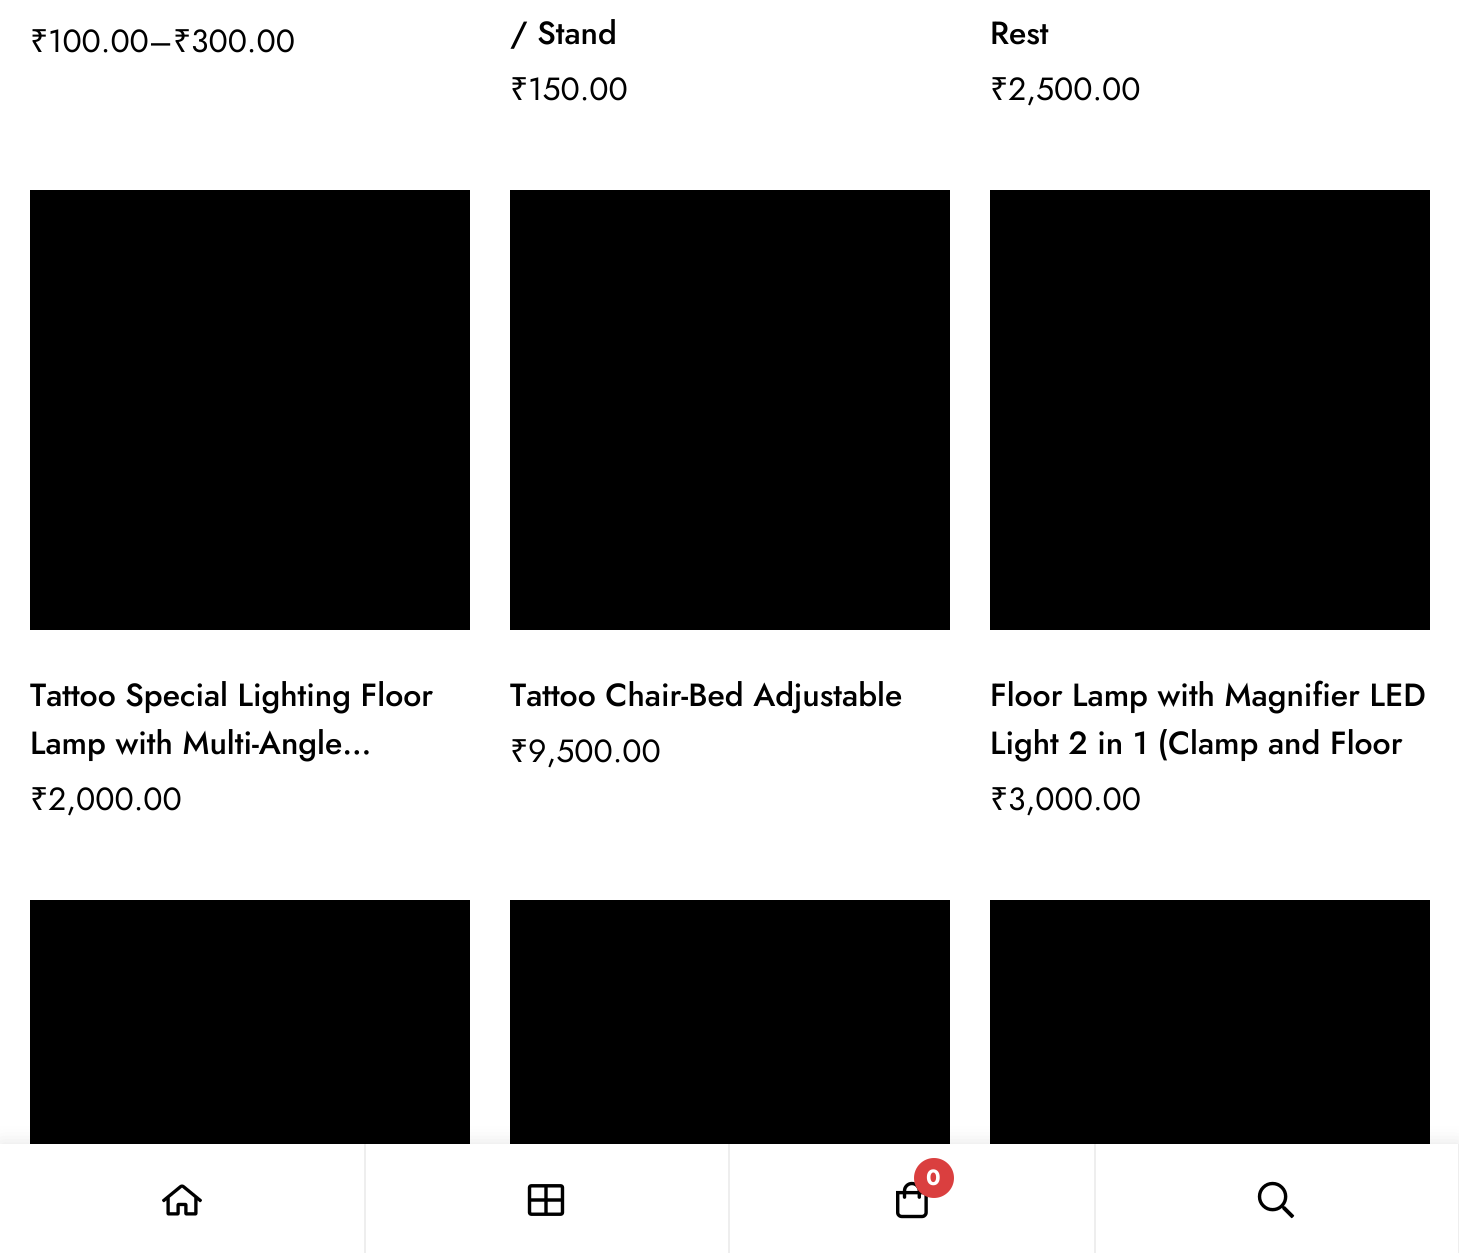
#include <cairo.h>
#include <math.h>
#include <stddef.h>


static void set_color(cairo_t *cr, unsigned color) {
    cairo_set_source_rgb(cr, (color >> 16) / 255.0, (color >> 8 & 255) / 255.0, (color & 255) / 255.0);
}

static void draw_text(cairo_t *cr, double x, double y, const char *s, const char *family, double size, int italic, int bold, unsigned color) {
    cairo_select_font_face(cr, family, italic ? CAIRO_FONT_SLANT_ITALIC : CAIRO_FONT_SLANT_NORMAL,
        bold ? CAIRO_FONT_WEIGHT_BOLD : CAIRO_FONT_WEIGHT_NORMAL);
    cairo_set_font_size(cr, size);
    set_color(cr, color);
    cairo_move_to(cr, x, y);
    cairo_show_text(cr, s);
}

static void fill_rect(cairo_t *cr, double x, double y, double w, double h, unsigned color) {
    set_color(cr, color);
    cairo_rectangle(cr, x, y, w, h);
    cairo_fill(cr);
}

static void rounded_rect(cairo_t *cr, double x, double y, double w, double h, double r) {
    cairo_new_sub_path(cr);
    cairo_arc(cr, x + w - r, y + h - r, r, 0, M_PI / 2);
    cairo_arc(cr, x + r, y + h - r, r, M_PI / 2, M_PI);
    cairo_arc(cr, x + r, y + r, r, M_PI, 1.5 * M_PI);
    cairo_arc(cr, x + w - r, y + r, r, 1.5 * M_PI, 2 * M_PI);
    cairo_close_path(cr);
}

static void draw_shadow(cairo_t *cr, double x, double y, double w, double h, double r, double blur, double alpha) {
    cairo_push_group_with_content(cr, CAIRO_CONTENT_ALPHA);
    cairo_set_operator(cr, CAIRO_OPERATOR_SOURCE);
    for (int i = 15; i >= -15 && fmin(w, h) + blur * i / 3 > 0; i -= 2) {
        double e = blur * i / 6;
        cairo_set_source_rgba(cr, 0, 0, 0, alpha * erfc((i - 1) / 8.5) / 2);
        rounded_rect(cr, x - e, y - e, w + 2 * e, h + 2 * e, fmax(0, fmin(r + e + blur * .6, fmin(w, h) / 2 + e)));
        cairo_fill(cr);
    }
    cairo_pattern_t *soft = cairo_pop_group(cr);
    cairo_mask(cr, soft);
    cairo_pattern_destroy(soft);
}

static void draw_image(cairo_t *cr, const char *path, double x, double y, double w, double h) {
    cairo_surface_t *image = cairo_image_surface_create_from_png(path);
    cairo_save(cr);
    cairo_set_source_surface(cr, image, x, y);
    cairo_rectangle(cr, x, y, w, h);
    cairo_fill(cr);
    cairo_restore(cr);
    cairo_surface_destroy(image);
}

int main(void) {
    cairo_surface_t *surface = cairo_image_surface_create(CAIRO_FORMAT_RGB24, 1459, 1253);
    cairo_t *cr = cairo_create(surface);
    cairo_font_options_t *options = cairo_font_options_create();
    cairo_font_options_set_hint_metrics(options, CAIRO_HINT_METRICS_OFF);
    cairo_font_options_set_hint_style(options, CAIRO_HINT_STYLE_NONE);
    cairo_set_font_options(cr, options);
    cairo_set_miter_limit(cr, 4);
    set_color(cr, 0xFFFFFF);
    cairo_paint(cr);
    draw_text(cr, 30, 52, "₹", "Noto Sans", 32, 0, 0, 0x000000);
    draw_text(cr, 48, 52, "100.00–", "Jost", 32, 0, 0, 0x000000);
    draw_text(cr, 173, 52, "₹", "Noto Sans", 32, 0, 0, 0x000000);
    draw_text(cr, 191, 52, "300.00", "Jost", 32, 0, 0, 0x000000);
    draw_text(cr, 510, 44, "/ Stand", "Jost Medium", 32, 0, 0, 0x000000);
    draw_text(cr, 510, 100, "₹", "Noto Sans", 32, 0, 0, 0x000000);
    draw_text(cr, 528, 100, "150.00", "Jost", 32, 0, 0, 0x000000);
    draw_text(cr, 990, 44, "Rest", "Jost Medium", 32, 0, 0, 0x000000);
    draw_text(cr, 990, 100, "₹", "Noto Sans", 32, 0, 0, 0x000000);
    draw_text(cr, 1008, 100, "2,500.00", "Jost", 32, 0, 0, 0x000000);
    fill_rect(cr, 30, 190, 440, 440, 0x000000);
    draw_text(cr, 30, 706, "Tattoo Special Lighting Floor", "Jost Medium", 32, 0, 0, 0x000000);
    draw_text(cr, 30, 754, "Lamp with Multi-Angle…", "Jost Medium", 32, 0, 0, 0x000000);
    draw_text(cr, 30, 810, "₹", "Noto Sans", 32, 0, 0, 0x000000);
    draw_text(cr, 48, 810, "2,000.00", "Jost", 32, 0, 0, 0x000000);
    fill_rect(cr, 510, 190, 440, 440, 0x000000);
    draw_text(cr, 510, 706, "Tattoo Chair-Bed Adjustable", "Jost Medium", 32, 0, 0, 0x000000);
    draw_text(cr, 510, 762, "₹", "Noto Sans", 32, 0, 0, 0x000000);
    draw_text(cr, 528, 762, "9,500.00", "Jost", 32, 0, 0, 0x000000);
    fill_rect(cr, 990, 190, 440, 440, 0x000000);
    draw_text(cr, 990, 706, "Floor Lamp with Magnifier LED", "Jost Medium", 32, 0, 0, 0x000000);
    draw_text(cr, 990, 754, "Light 2 in 1 (Clamp and Floor", "Jost Medium", 32, 0, 0, 0x000000);
    draw_text(cr, 990, 810, "₹", "Noto Sans", 32, 0, 0, 0x000000);
    draw_text(cr, 1008, 810, "3,000.00", "Jost", 32, 0, 0, 0x000000);
    fill_rect(cr, 30, 900, 440, 244, 0x000000);
    fill_rect(cr, 510, 900, 440, 244, 0x000000);
    fill_rect(cr, 990, 900, 440, 244, 0x000000);
    set_color(cr, 0x000000);
    draw_shadow(cr, 0, 1144, 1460, 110, 0, 10, 0.11);
    fill_rect(cr, 0, 1144, 1458, 109, 0xFFFFFF);
    fill_rect(cr, 364, 1144, 2, 109, 0xEEEEEE);
    draw_image(cr, "assets/img1.png", 162, 1184, 40, 32);
    fill_rect(cr, 728, 1144, 2, 109, 0xEEEEEE);
    draw_image(cr, "assets/img2.png", 527, 1184, 38, 32);
    fill_rect(cr, 1094, 1144, 2, 109, 0xEEEEEE);
    draw_image(cr, "assets/img3.png", 896, 1181, 32, 38);
    set_color(cr, 0xDA3F3F);
    cairo_arc(cr, 934, 1178, 20, 0, 2 * M_PI);
    cairo_fill(cr);
    draw_text(cr, 926, 1185, "0", "Jost", 22, 0, 1, 0xFFFFFF);
    fill_rect(cr, 1458, 1144, 1, 109, 0xEEEEEE);
    draw_image(cr, "assets/img4.png", 1257, 1181, 38, 38);
    cairo_surface_write_to_png(surface, "output.png");
    cairo_font_options_destroy(options);
    cairo_destroy(cr);
    cairo_surface_destroy(surface);
    return 0;
}
